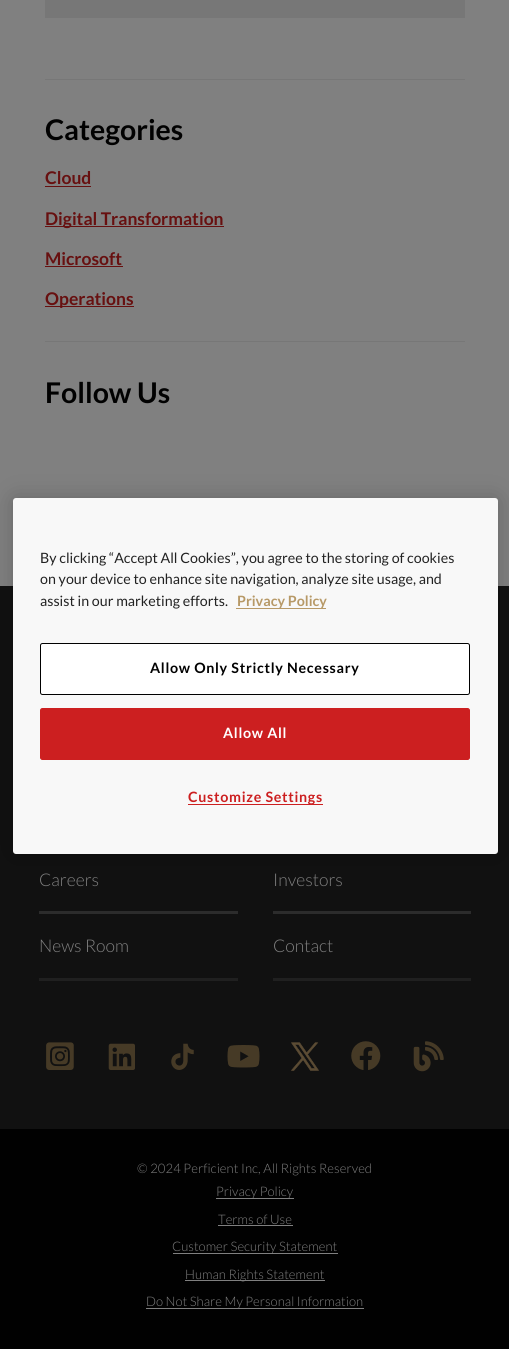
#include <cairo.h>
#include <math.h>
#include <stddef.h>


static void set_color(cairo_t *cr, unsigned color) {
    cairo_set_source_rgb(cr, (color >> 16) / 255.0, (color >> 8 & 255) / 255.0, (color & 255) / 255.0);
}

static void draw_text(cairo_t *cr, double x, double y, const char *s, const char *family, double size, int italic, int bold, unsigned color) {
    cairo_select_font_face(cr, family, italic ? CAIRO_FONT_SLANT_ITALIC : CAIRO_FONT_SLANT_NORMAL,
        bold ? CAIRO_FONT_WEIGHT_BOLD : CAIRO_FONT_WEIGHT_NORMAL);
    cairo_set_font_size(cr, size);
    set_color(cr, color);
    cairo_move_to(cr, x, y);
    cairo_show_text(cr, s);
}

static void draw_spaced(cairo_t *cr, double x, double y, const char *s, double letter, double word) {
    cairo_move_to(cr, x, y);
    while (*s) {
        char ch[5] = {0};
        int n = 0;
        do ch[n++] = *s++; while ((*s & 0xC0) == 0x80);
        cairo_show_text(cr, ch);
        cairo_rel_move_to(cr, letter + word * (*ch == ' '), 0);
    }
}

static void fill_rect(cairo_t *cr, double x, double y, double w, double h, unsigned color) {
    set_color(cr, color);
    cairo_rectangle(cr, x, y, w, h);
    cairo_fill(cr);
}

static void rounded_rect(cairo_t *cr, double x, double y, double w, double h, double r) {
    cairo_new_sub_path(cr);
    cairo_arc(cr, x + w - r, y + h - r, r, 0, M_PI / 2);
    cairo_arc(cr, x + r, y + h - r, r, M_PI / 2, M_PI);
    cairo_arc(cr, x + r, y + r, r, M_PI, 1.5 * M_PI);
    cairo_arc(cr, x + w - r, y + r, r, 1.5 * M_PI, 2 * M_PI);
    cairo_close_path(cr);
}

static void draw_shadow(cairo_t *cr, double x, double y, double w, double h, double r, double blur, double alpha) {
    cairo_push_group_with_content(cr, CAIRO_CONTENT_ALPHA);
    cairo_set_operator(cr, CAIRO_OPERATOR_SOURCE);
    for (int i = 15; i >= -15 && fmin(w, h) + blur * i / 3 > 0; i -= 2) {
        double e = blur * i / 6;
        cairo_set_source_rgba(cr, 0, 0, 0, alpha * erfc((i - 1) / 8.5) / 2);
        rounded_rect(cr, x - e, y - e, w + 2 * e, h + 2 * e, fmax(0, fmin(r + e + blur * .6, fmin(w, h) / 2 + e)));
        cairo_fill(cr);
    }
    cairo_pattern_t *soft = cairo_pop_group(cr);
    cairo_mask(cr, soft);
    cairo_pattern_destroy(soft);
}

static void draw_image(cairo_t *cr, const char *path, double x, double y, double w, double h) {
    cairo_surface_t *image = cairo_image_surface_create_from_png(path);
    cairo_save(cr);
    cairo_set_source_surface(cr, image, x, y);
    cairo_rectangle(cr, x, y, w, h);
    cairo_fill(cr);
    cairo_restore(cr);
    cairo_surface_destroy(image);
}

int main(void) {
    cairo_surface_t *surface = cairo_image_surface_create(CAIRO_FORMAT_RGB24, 509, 1349);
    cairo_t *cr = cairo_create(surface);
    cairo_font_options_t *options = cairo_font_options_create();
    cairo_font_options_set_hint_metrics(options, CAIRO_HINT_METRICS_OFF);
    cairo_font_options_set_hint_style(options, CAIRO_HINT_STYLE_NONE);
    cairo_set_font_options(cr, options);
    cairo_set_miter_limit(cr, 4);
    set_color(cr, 0x808080);
    cairo_paint(cr);
    fill_rect(cr, 45, 0, 420, 18, 0x777777);
    fill_rect(cr, 45, 79, 420, 1, 0x777777);
    fill_rect(cr, 45, 341, 420, 1, 0x777777);
    draw_text(cr, 45, 140, "Categories", "Lato", 28.5, 0, 1, 0x010101);
    draw_text(cr, 45, 184, "Cloud", "Lato", 17.5, 0, 1, 0x671010);
    fill_rect(cr, 45, 186, 46, 1, 0x671010);
    fill_rect(cr, 45, 226, 179, 1, 0x671010);
    draw_text(cr, 45, 225, "Digital Transformation", "Lato", 17.5, 0, 1, 0x671010);
    draw_text(cr, 45, 265, "Microsoft", "Lato", 17.5, 0, 1, 0x671010);
    fill_rect(cr, 45, 266, 78, 1, 0x671010);
    fill_rect(cr, 45, 306, 89, 1, 0x671010);
    draw_text(cr, 45, 305, "Operations", "Lato", 17.5, 0, 1, 0x671010);
    draw_text(cr, 45, 403, "Follow Us", "Lato", 28.5, 0, 1, 0x010101);
    fill_rect(cr, 0, 586, 509, 543, 0x111111);
    set_color(cr, 0x000000);
    draw_shadow(cr, 13, 498, 485, 356, 3, 11, 0.2);
    set_color(cr, 0xF8F8F8);
    rounded_rect(cr, 13, 498, 485, 356, 3);
    cairo_fill(cr);
    draw_text(cr, 40, 563, "By clicking “Accept All Cookies”, you agree to the storing of cookies", "Lato", 14.25, 0, 0, 0x222222);
    draw_text(cr, 40, 584, "on your device to enhance site navigation, analyze site usage, and", "Lato", 14.25, 0, 0, 0x222222);
    draw_text(cr, 40, 606, "assist in our marketing efforts.", "Lato", 14.25, 0, 0, 0x222222);
    fill_rect(cr, 236, 608, 90, 1, 0xB79967);
    draw_text(cr, 237, 606, "Privacy Policy", "Lato", 14.25, 0, 1, 0xB79967);
    set_color(cr, 0xFFFFFF);
    rounded_rect(cr, 40.5, 643.5, 429, 51, 2);
    cairo_fill_preserve(cr);
    set_color(cr, 0x000000);
    cairo_set_line_width(cr, 1);
    cairo_stroke(cr);
    set_color(cr, 0x010101);
    draw_spaced(cr, 150, 673, "Allow Only Strictly Necessary", 0.7, 0);
    set_color(cr, 0xCC1F20);
    rounded_rect(cr, 40.5, 708.5, 429, 51, 2);
    cairo_fill_preserve(cr);
    cairo_stroke(cr);
    set_color(cr, 0xFFFFFF);
    draw_spaced(cr, 223, 738, "Allow All", 0.7, 0);
    fill_rect(cr, 188, 804, 135, 1, 0xCC1F20);
    draw_spaced(cr, 188, 802, "Customize Settings", 0.7, 0);
    draw_text(cr, 39, 886, "Careers", "Lato Light", 17.5, 0, 0, 0x808080);
    draw_text(cr, 273, 886, "Investors", "Lato Light", 17.5, 0, 0, 0x808080);
    fill_rect(cr, 39, 911, 199, 3, 0x2C2C2C);
    fill_rect(cr, 39, 978, 199, 3, 0x202020);
    draw_text(cr, 39, 952, "News Room", "Lato Light", 17.5, 0, 0, 0x808080);
    fill_rect(cr, 273, 911, 198, 3, 0x2C2C2C);
    fill_rect(cr, 273, 978, 198, 3, 0x202020);
    draw_text(cr, 273, 952, "Contact", "Lato Light", 17.5, 0, 0, 0x808080);
    draw_image(cr, "assets/img1.png", 46, 1042, 28, 28);
    draw_image(cr, "assets/img2.png", 108, 1043, 27, 27);
    draw_image(cr, "assets/img3.png", 171, 1043, 23, 27);
    draw_image(cr, "assets/img4.png", 227, 1045, 33, 23);
    draw_image(cr, "assets/img5.png", 291, 1042, 28, 29);
    draw_image(cr, "assets/img6.png", 351, 1041, 30, 29);
    draw_image(cr, "assets/img7.png", 413, 1041, 31, 31);
    fill_rect(cr, 0, 1129, 509, 220, 0x010101);
    cairo_set_font_size(cr, 13.1);
    set_color(cr, 0x808080);
    draw_spaced(cr, 137, 1173, "© 2024 Perficient Inc, All Rights Reserved", 0.05, 0);
    fill_rect(cr, 216, 1198, 78, 1, 0x808080);
    draw_text(cr, 216, 1196, "Privacy Policy", "Lato Light", 13.1, 0, 0, 0x808080);
    draw_text(cr, 218, 1224, "Terms of Use", "Lato Light", 13.1, 0, 0, 0x808080);
    fill_rect(cr, 218, 1225, 75, 1, 0x808080);
    fill_rect(cr, 173, 1253, 165, 1, 0x808080);
    draw_text(cr, 172, 1251, "Customer Security Statement", "Lato Light", 13.1, 0, 0, 0x808080);
    fill_rect(cr, 185, 1280, 140, 1, 0x808080);
    draw_text(cr, 185, 1279, "Human Rights Statement", "Lato Light", 13.1, 0, 0, 0x808080);
    fill_rect(cr, 146, 1308, 218, 1, 0x808080);
    draw_text(cr, 146, 1306, "Do Not Share My Personal Information", "Lato Light", 13.1, 0, 0, 0x808080);
    cairo_surface_write_to_png(surface, "output.png");
    cairo_font_options_destroy(options);
    cairo_destroy(cr);
    cairo_surface_destroy(surface);
    return 0;
}
